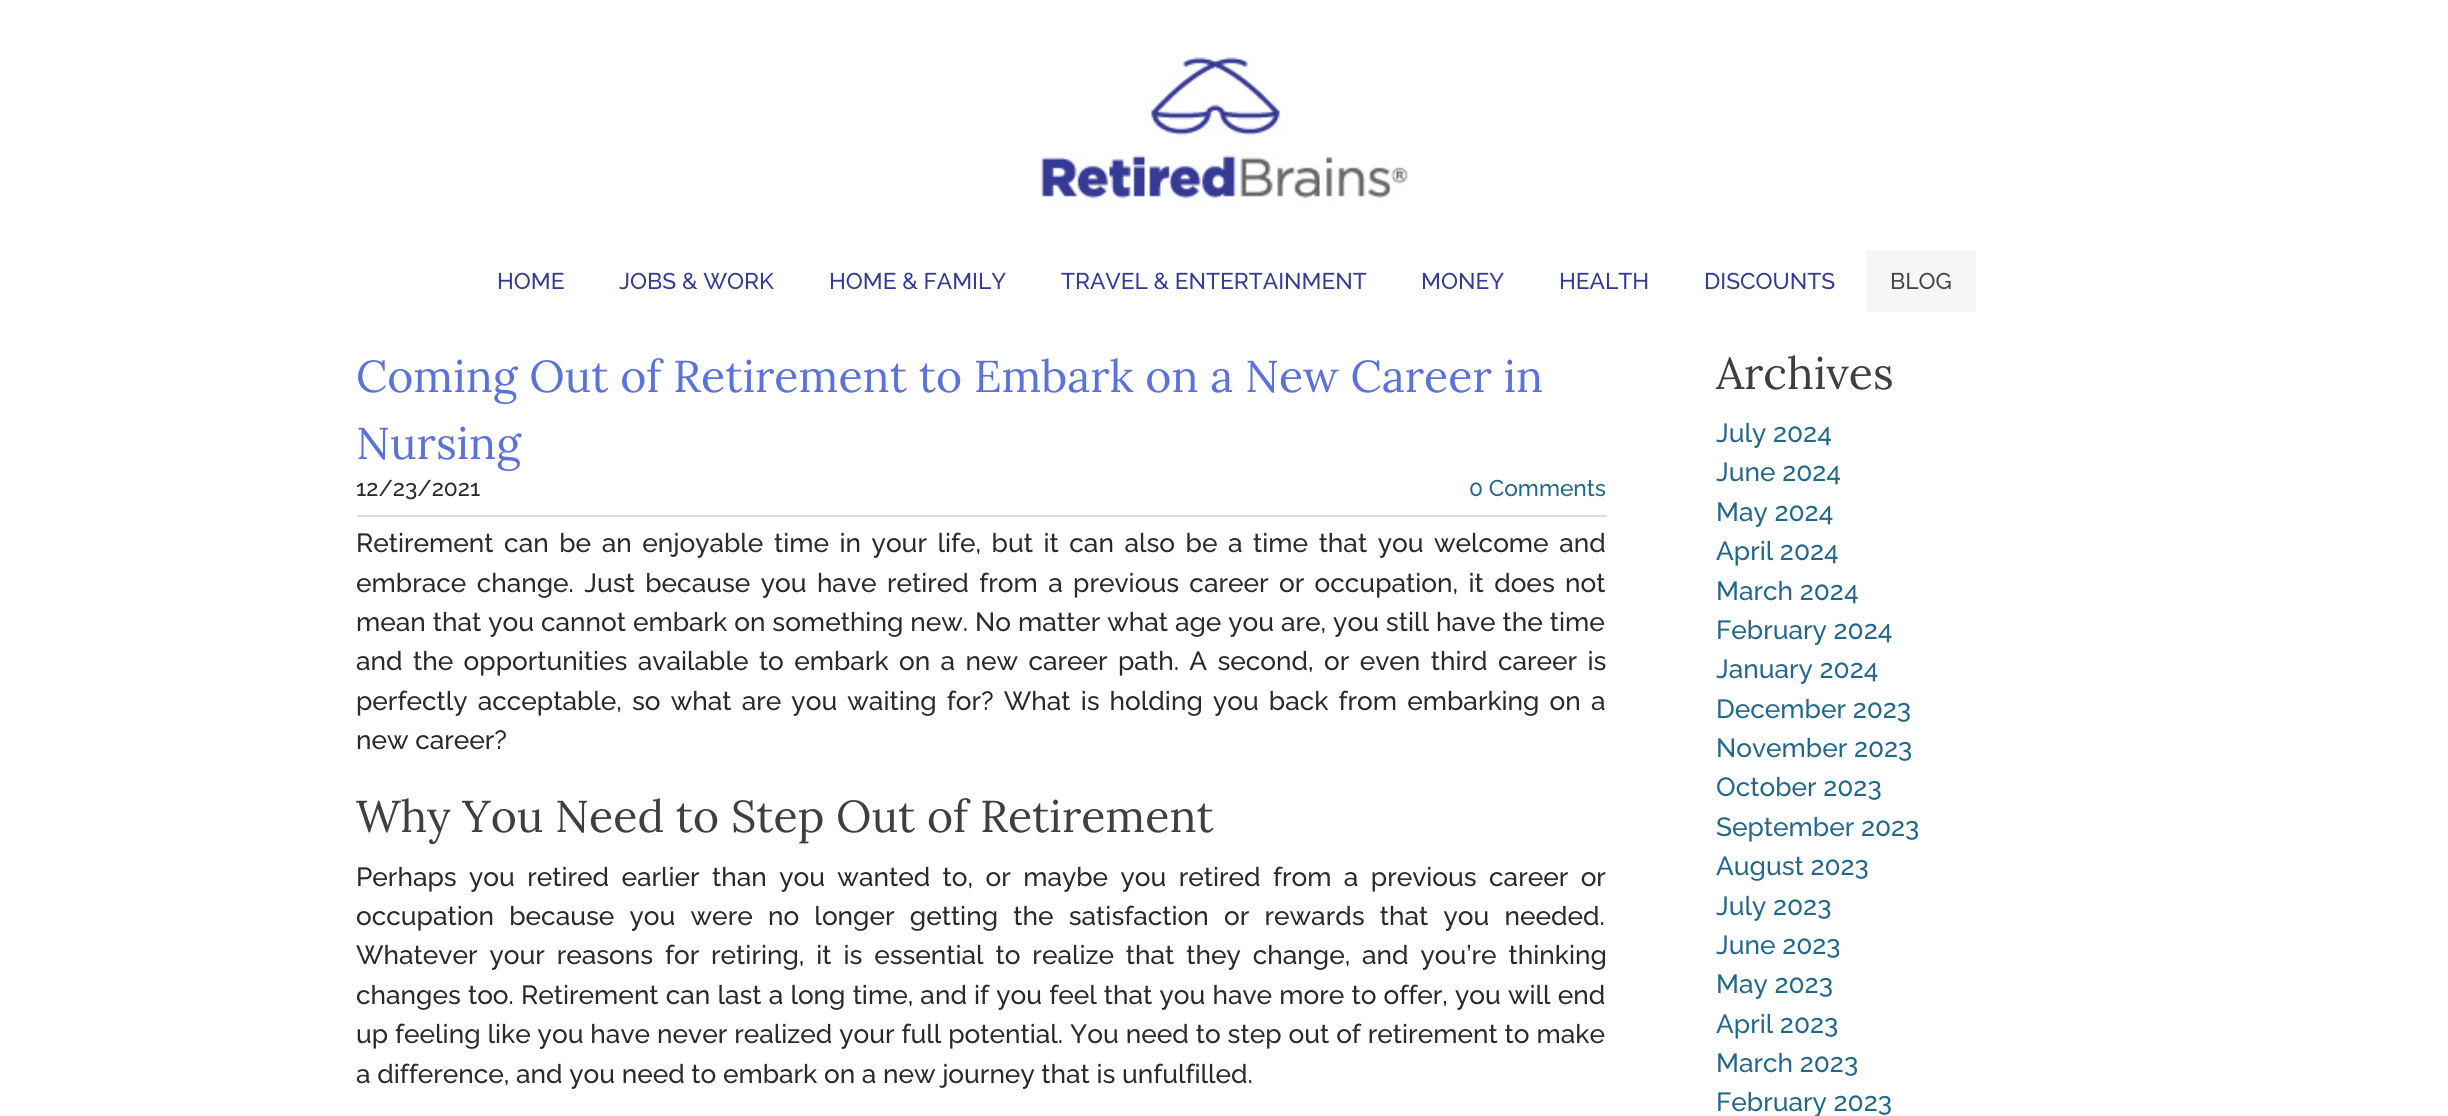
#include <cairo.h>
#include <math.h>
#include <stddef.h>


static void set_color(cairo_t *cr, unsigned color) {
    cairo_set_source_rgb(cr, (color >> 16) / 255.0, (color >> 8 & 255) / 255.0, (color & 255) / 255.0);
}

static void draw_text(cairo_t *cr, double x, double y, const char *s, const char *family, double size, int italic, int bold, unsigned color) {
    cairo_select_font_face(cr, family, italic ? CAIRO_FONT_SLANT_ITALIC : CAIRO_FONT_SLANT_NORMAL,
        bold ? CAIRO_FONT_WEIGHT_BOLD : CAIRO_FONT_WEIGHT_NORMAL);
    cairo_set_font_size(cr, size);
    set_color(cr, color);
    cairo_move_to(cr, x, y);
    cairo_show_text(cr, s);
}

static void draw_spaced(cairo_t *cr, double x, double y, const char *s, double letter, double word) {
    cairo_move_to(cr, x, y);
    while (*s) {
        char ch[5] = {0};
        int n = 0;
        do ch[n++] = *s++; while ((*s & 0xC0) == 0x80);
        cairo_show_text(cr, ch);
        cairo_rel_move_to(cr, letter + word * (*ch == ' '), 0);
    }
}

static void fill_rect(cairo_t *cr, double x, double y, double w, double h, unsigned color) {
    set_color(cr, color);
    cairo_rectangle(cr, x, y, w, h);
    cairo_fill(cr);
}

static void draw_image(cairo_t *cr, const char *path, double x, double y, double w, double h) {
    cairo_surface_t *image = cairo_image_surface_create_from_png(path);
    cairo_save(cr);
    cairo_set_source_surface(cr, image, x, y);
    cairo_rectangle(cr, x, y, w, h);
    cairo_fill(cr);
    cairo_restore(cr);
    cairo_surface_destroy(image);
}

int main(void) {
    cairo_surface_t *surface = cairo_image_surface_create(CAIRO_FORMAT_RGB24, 2448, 1116);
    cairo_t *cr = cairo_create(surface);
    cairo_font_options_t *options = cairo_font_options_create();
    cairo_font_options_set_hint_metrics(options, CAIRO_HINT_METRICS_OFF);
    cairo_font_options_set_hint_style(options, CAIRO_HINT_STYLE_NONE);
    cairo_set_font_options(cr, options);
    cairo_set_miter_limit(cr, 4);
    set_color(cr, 0xFFFFFF);
    cairo_paint(cr);
    draw_image(cr, "assets/img1.png", 1038, 57, 370, 149);
    draw_text(cr, 497, 289, "HOME", "Raleway Thin", 22.75, 0, 0, 0x353A99);
    draw_text(cr, 619, 289, "JOBS & WORK", "Raleway Thin", 22.75, 0, 0, 0x353A99);
    draw_text(cr, 829, 289, "HOME & FAMILY", "Raleway Thin", 22.75, 0, 0, 0x353A99);
    draw_text(cr, 1061, 289, "TRAVEL & ENTERTAINMENT", "Raleway Thin", 22.75, 0, 0, 0x353A99);
    draw_text(cr, 1421, 289, "MONEY", "Raleway Thin", 22.75, 0, 0, 0x353A99);
    draw_text(cr, 1559, 289, "HEALTH", "Raleway Thin", 22.75, 0, 0, 0x353A99);
    draw_text(cr, 1704, 289, "DISCOUNTS", "Raleway Thin", 22.75, 0, 0, 0x353A99);
    fill_rect(cr, 1866, 250, 110, 62, 0xF6F6F6);
    draw_text(cr, 1890, 289, "BLOG", "Raleway Thin", 22.75, 0, 0, 0x484848);
    draw_text(cr, 356, 392, "Coming Out of Retirement to Embark on a New Career in", "Lora", 44.6, 0, 0, 0x5B72DC);
    draw_text(cr, 356, 459, "Nursing", "Lora", 44.6, 0, 0, 0x5B72DC);
    draw_text(cr, 356, 496, "12/23/2021", "Raleway Thin", 22.75, 0, 0, 0x2A2A2A);
    draw_text(cr, 1469, 496, "0 Comments", "Raleway Thin", 22.75, 0, 0, 0x24678D);
    fill_rect(cr, 357, 515, 1250, 2, 0xDDDDDD);
    cairo_set_font_size(cr, 26.25);
    set_color(cr, 0x2A2A2A);
    draw_spaced(cr, 356, 552, "Retirement can be an enjoyable time in your life, but it can also be a time that you welcome and", 0, 3.9);
    draw_spaced(cr, 356, 592, "embrace change. Just because you have retired from a previous career or occupation, it does not", 0, 3.75);
    draw_spaced(cr, 356, 631, "mean that you cannot embark on something new. No matter what age you are, you still have the time", 0, 0.3);
    draw_spaced(cr, 356, 670, "and the opportunities available to embark on a new career path. A second, or even third career is", 0, 3.75);
    draw_spaced(cr, 356, 710, "perfectly acceptable, so what are you waiting for? What is holding you back from embarking on a", 0, 3.5);
    draw_text(cr, 356, 749, "new career?", "Raleway Thin", 26.25, 0, 0, 0x2A2A2A);
    draw_text(cr, 356, 832, "Why You Need to Step Out of Retirement", "Lora", 44.6, 0, 0, 0x3F3F3F);
    cairo_select_font_face(cr, "Raleway Thin", CAIRO_FONT_SLANT_NORMAL, CAIRO_FONT_WEIGHT_NORMAL);
    cairo_set_font_size(cr, 26.25);
    set_color(cr, 0x2A2A2A);
    draw_spaced(cr, 356, 886, "Perhaps you retired earlier than you wanted to, or maybe you retired from a previous career or", 0, 5.75);
    draw_spaced(cr, 356, 925, "occupation because you were no longer getting the satisfaction or rewards that you needed.", 0, 8.6);
    draw_spaced(cr, 356, 964, "Whatever your reasons for retiring, it is essential to realize that they change, and you’re thinking", 0, 5.25);
    draw_spaced(cr, 356, 1004, "changes too. Retirement can last a long time, and if you feel that you have more to offer, you will end", 0, 0.5);
    draw_spaced(cr, 356, 1043, "up feeling like you have never realized your full potential. You need to step out of retirement to make", 0, 0.3);
    draw_text(cr, 356, 1083, "a difference, and you need to embark on a new journey that is unfulfilled.", "Raleway Thin", 26.25, 0, 0, 0x2A2A2A);
    draw_text(cr, 1716, 389, "Archives", "Lora", 44.6, 0, 0, 0x3F3F3F);
    draw_text(cr, 1716, 442, "July 2024", "Raleway Thin", 26.25, 0, 0, 0x24678D);
    draw_text(cr, 1716, 481, "June 2024", "Raleway Thin", 26.25, 0, 0, 0x24678D);
    draw_text(cr, 1716, 521, "May 2024", "Raleway Thin", 26.25, 0, 0, 0x24678D);
    draw_text(cr, 1716, 560, "April 2024", "Raleway Thin", 26.25, 0, 0, 0x24678D);
    draw_text(cr, 1716, 600, "March 2024", "Raleway Thin", 26.25, 0, 0, 0x24678D);
    draw_text(cr, 1716, 639, "February 2024", "Raleway Thin", 26.25, 0, 0, 0x24678D);
    draw_text(cr, 1716, 678, "January 2024", "Raleway Thin", 26.25, 0, 0, 0x24678D);
    draw_text(cr, 1716, 718, "December 2023", "Raleway Thin", 26.25, 0, 0, 0x24678D);
    draw_text(cr, 1716, 757, "November 2023", "Raleway Thin", 26.25, 0, 0, 0x24678D);
    draw_text(cr, 1716, 796, "October 2023", "Raleway Thin", 26.25, 0, 0, 0x24678D);
    draw_text(cr, 1716, 836, "September 2023", "Raleway Thin", 26.25, 0, 0, 0x24678D);
    draw_text(cr, 1716, 875, "August 2023", "Raleway Thin", 26.25, 0, 0, 0x24678D);
    draw_text(cr, 1716, 915, "July 2023", "Raleway Thin", 26.25, 0, 0, 0x24678D);
    draw_text(cr, 1716, 954, "June 2023", "Raleway Thin", 26.25, 0, 0, 0x24678D);
    draw_text(cr, 1716, 993, "May 2023", "Raleway Thin", 26.25, 0, 0, 0x24678D);
    draw_text(cr, 1716, 1033, "April 2023", "Raleway Thin", 26.25, 0, 0, 0x24678D);
    draw_text(cr, 1716, 1072, "March 2023", "Raleway Thin", 26.25, 0, 0, 0x24678D);
    draw_text(cr, 1716, 1111, "February 2023", "Raleway Thin", 26.25, 0, 0, 0x24678D);
    cairo_surface_write_to_png(surface, "output.png");
    cairo_font_options_destroy(options);
    cairo_destroy(cr);
    cairo_surface_destroy(surface);
    return 0;
}
